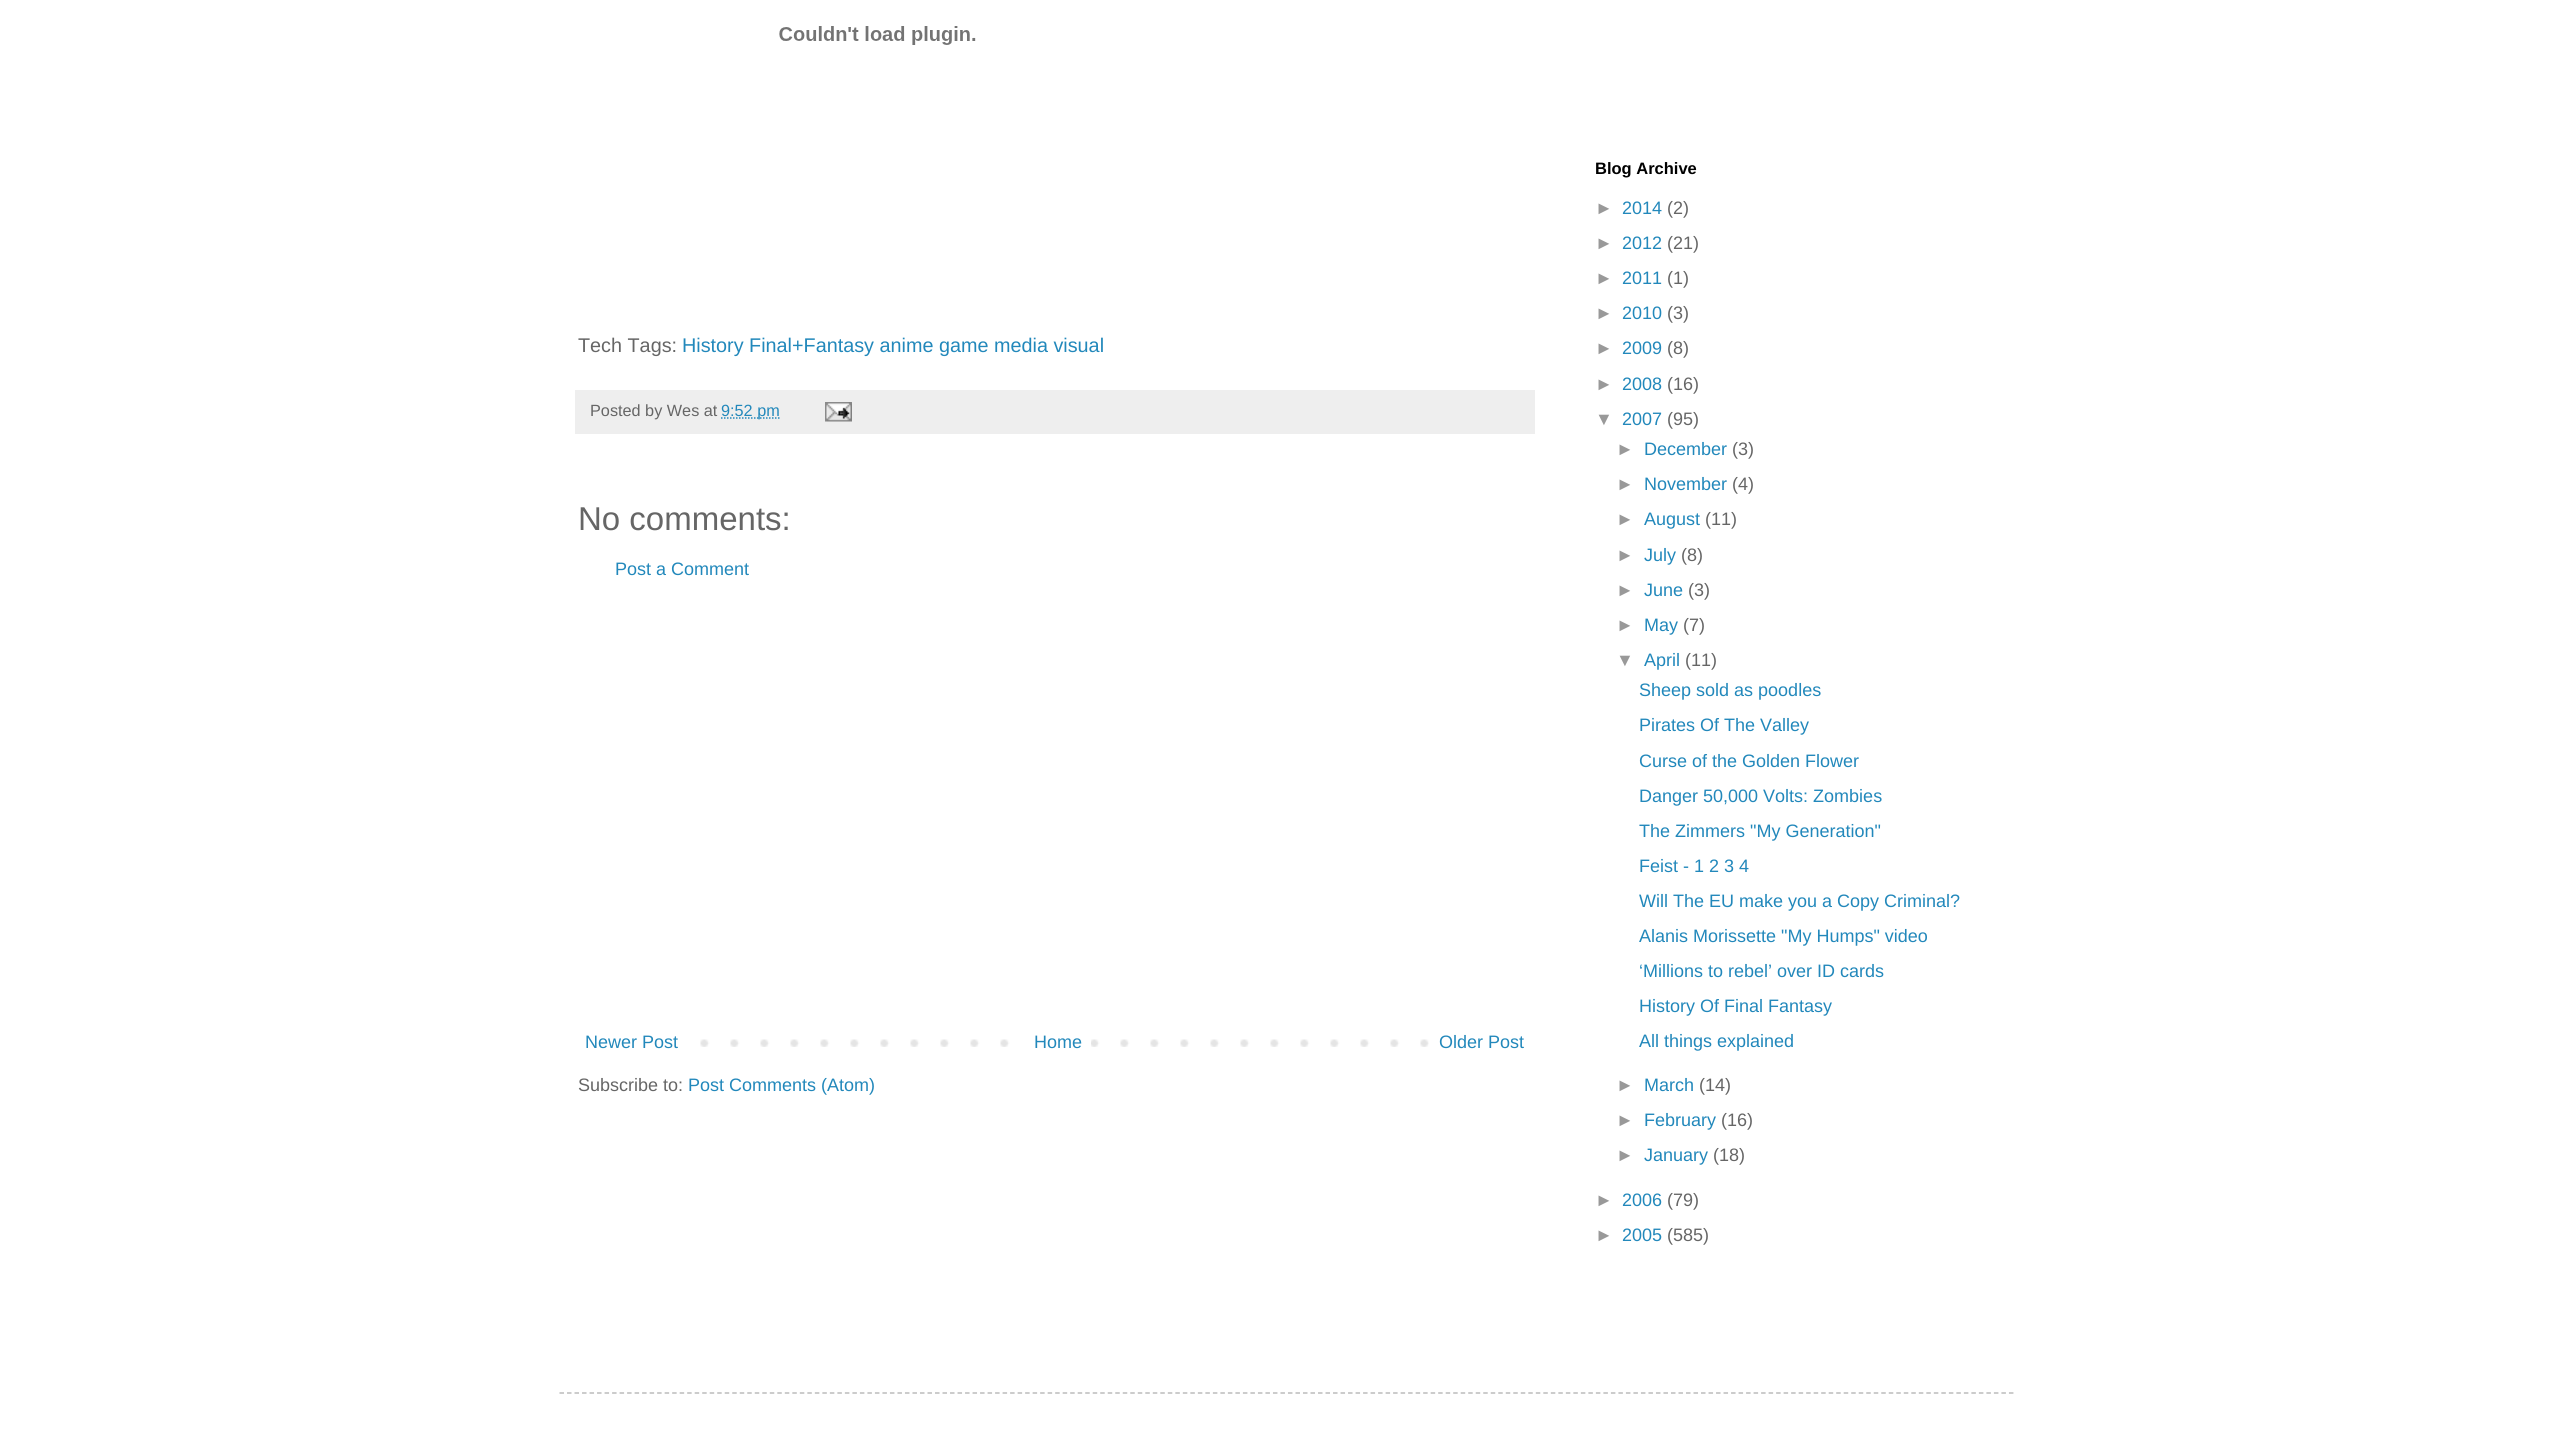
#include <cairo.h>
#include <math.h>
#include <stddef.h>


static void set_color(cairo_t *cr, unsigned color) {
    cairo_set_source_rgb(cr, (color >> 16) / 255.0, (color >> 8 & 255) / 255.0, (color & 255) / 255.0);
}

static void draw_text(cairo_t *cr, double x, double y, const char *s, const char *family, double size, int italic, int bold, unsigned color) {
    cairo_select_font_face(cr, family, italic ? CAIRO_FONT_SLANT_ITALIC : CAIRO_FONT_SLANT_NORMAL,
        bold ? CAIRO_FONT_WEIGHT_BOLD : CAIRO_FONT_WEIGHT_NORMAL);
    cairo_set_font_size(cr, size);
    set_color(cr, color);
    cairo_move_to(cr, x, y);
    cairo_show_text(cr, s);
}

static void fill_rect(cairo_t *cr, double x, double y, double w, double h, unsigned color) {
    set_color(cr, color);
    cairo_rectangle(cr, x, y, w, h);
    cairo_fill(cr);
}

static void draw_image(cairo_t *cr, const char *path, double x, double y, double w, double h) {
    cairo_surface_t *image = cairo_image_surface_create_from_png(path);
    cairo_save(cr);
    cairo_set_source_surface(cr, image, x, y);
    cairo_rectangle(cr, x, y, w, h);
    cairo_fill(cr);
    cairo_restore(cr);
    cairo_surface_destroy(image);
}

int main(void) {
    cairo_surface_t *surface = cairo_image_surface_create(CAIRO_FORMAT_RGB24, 2574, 1438);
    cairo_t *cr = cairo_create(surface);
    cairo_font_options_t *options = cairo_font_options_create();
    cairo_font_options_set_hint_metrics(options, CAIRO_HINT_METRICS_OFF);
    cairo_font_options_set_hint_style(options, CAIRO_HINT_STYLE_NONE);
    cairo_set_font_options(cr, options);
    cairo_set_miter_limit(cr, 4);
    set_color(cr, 0xFFFFFF);
    cairo_paint(cr);
    draw_image(cr, "assets/img1.png", 779, 26, 197, 19);
    draw_text(cr, 578, 352, "Tech Tags:", "Liberation Sans", 19.8, 0, 0, 0x666666);
    draw_text(cr, 682, 352, "History Final+Fantasy anime game media visual", "Liberation Sans", 19.8, 0, 0, 0x2288BB);
    fill_rect(cr, 575, 390, 960, 44, 0xEEEEEE);
    draw_text(cr, 590, 416, "Posted by Wes at", "Liberation Sans", 16.25, 0, 0, 0x666666);
    cairo_new_path(cr);
    cairo_move_to(cr, 721, 418);
    cairo_line_to(cr, 779.5, 418);
    set_color(cr, 0x2288BB);
    cairo_set_line_width(cr, 1.5);
    cairo_set_dash(cr, (double[]){1.5, 1.5}, 2, 0);
    cairo_stroke(cr);
    draw_text(cr, 721, 416, "9:52 pm", "Liberation Sans", 16.25, 0, 0, 0x2288BB);
    draw_image(cr, "assets/img2.png", 825, 402, 27, 20);
    draw_text(cr, 578, 530, "No comments:", "Liberation Sans", 33, 0, 0, 0x666666);
    draw_text(cr, 615, 575, "Post a Comment", "Liberation Sans", 18, 0, 0, 0x2288BB);
    draw_image(cr, "assets/img3.png", 700, 1039, 729, 8);
    draw_text(cr, 585, 1048, "Newer Post", "Liberation Sans", 18, 0, 0, 0x2288BB);
    fill_rect(cr, 1030, 1039, 61, 8, 0xFFFFFF);
    draw_text(cr, 1034, 1048, "Home", "Liberation Sans", 18, 0, 0, 0x2288BB);
    draw_text(cr, 1439, 1048, "Older Post", "Liberation Sans", 18, 0, 0, 0x2288BB);
    draw_text(cr, 578, 1091, "Subscribe to:", "Liberation Sans", 18, 0, 0, 0x666666);
    draw_text(cr, 688, 1091, "Post Comments (Atom)", "Liberation Sans", 18, 0, 0, 0x2288BB);
    draw_text(cr, 1595, 174, "Blog Archive", "Liberation Sans", 16.5, 0, 1, 0x000000);
    draw_text(cr, 1595, 214, "►", "Liberation Sans", 18, 0, 0, 0x999999);
    draw_text(cr, 1622, 214, "2014", "Liberation Sans", 18, 0, 0, 0x2288BB);
    draw_text(cr, 1667, 214, "(2)", "Liberation Sans", 18, 0, 0, 0x666666);
    draw_text(cr, 1595, 249, "►", "Liberation Sans", 18, 0, 0, 0x999999);
    draw_text(cr, 1622, 249, "2012", "Liberation Sans", 18, 0, 0, 0x2288BB);
    draw_text(cr, 1667, 249, "(21)", "Liberation Sans", 18, 0, 0, 0x666666);
    draw_text(cr, 1595, 284, "►", "Liberation Sans", 18, 0, 0, 0x999999);
    draw_text(cr, 1622, 284, "2011", "Liberation Sans", 18, 0, 0, 0x2288BB);
    draw_text(cr, 1667, 284, "(1)", "Liberation Sans", 18, 0, 0, 0x666666);
    draw_text(cr, 1595, 319, "►", "Liberation Sans", 18, 0, 0, 0x999999);
    draw_text(cr, 1622, 319, "2010", "Liberation Sans", 18, 0, 0, 0x2288BB);
    draw_text(cr, 1667, 319, "(3)", "Liberation Sans", 18, 0, 0, 0x666666);
    draw_text(cr, 1595, 354, "►", "Liberation Sans", 18, 0, 0, 0x999999);
    draw_text(cr, 1622, 354, "2009", "Liberation Sans", 18, 0, 0, 0x2288BB);
    draw_text(cr, 1667, 354, "(8)", "Liberation Sans", 18, 0, 0, 0x666666);
    draw_text(cr, 1595, 390, "►", "Liberation Sans", 18, 0, 0, 0x999999);
    draw_text(cr, 1622, 390, "2008", "Liberation Sans", 18, 0, 0, 0x2288BB);
    draw_text(cr, 1667, 390, "(16)", "Liberation Sans", 18, 0, 0, 0x666666);
    draw_text(cr, 1595, 425, "▼", "Liberation Sans", 18, 0, 0, 0x999999);
    draw_text(cr, 1622, 425, "2007", "Liberation Sans", 18, 0, 0, 0x2288BB);
    draw_text(cr, 1667, 425, "(95)", "Liberation Sans", 18, 0, 0, 0x666666);
    draw_text(cr, 1616, 455, "►", "Liberation Sans", 18, 0, 0, 0x999999);
    draw_text(cr, 1644, 455, "December", "Liberation Sans", 18, 0, 0, 0x2288BB);
    draw_text(cr, 1732, 455, "(3)", "Liberation Sans", 18, 0, 0, 0x666666);
    draw_text(cr, 1616, 490, "►", "Liberation Sans", 18, 0, 0, 0x999999);
    draw_text(cr, 1644, 490, "November", "Liberation Sans", 18, 0, 0, 0x2288BB);
    draw_text(cr, 1732, 490, "(4)", "Liberation Sans", 18, 0, 0, 0x666666);
    draw_text(cr, 1616, 525, "►", "Liberation Sans", 18, 0, 0, 0x999999);
    draw_text(cr, 1644, 525, "August", "Liberation Sans", 18, 0, 0, 0x2288BB);
    draw_text(cr, 1705, 525, "(11)", "Liberation Sans", 18, 0, 0, 0x666666);
    draw_text(cr, 1616, 561, "►", "Liberation Sans", 18, 0, 0, 0x999999);
    draw_text(cr, 1644, 561, "July", "Liberation Sans", 18, 0, 0, 0x2288BB);
    draw_text(cr, 1681, 561, "(8)", "Liberation Sans", 18, 0, 0, 0x666666);
    draw_text(cr, 1616, 596, "►", "Liberation Sans", 18, 0, 0, 0x999999);
    draw_text(cr, 1644, 596, "June", "Liberation Sans", 18, 0, 0, 0x2288BB);
    draw_text(cr, 1688, 596, "(3)", "Liberation Sans", 18, 0, 0, 0x666666);
    draw_text(cr, 1616, 631, "►", "Liberation Sans", 18, 0, 0, 0x999999);
    draw_text(cr, 1644, 631, "May", "Liberation Sans", 18, 0, 0, 0x2288BB);
    draw_text(cr, 1683, 631, "(7)", "Liberation Sans", 18, 0, 0, 0x666666);
    draw_text(cr, 1616, 666, "▼", "Liberation Sans", 18, 0, 0, 0x999999);
    draw_text(cr, 1644, 666, "April", "Liberation Sans", 18, 0, 0, 0x2288BB);
    draw_text(cr, 1685, 666, "(11)", "Liberation Sans", 18, 0, 0, 0x666666);
    draw_text(cr, 1639, 696, "Sheep sold as poodles", "Liberation Sans", 18, 0, 0, 0x2288BB);
    draw_text(cr, 1639, 731, "Pirates Of The Valley", "Liberation Sans", 18, 0, 0, 0x2288BB);
    draw_text(cr, 1639, 767, "Curse of the Golden Flower", "Liberation Sans", 18, 0, 0, 0x2288BB);
    draw_text(cr, 1639, 802, "Danger 50,000 Volts: Zombies", "Liberation Sans", 18, 0, 0, 0x2288BB);
    draw_text(cr, 1639, 837, "The Zimmers \"My Generation\"", "Liberation Sans", 18, 0, 0, 0x2288BB);
    draw_text(cr, 1639, 872, "Feist - 1 2 3 4", "Liberation Sans", 18, 0, 0, 0x2288BB);
    draw_text(cr, 1639, 907, "Will The EU make you a Copy Criminal?", "Liberation Sans", 18, 0, 0, 0x2288BB);
    draw_text(cr, 1639, 942, "Alanis Morissette \"My Humps\" video", "Liberation Sans", 18, 0, 0, 0x2288BB);
    draw_text(cr, 1639, 977, "‘Millions to rebel’ over ID cards", "Liberation Sans", 18, 0, 0, 0x2288BB);
    draw_text(cr, 1639, 1012, "History Of Final Fantasy", "Liberation Sans", 18, 0, 0, 0x2288BB);
    draw_text(cr, 1639, 1047, "All things explained", "Liberation Sans", 18, 0, 0, 0x2288BB);
    draw_text(cr, 1616, 1091, "►", "Liberation Sans", 18, 0, 0, 0x999999);
    draw_text(cr, 1644, 1091, "March", "Liberation Sans", 18, 0, 0, 0x2288BB);
    draw_text(cr, 1699, 1091, "(14)", "Liberation Sans", 18, 0, 0, 0x666666);
    draw_text(cr, 1616, 1126, "►", "Liberation Sans", 18, 0, 0, 0x999999);
    draw_text(cr, 1644, 1126, "February", "Liberation Sans", 18, 0, 0, 0x2288BB);
    draw_text(cr, 1721, 1126, "(16)", "Liberation Sans", 18, 0, 0, 0x666666);
    draw_text(cr, 1616, 1161, "►", "Liberation Sans", 18, 0, 0, 0x999999);
    draw_text(cr, 1644, 1161, "January", "Liberation Sans", 18, 0, 0, 0x2288BB);
    draw_text(cr, 1713, 1161, "(18)", "Liberation Sans", 18, 0, 0, 0x666666);
    draw_text(cr, 1595, 1206, "►", "Liberation Sans", 18, 0, 0, 0x999999);
    draw_text(cr, 1622, 1206, "2006", "Liberation Sans", 18, 0, 0, 0x2288BB);
    draw_text(cr, 1667, 1206, "(79)", "Liberation Sans", 18, 0, 0, 0x666666);
    draw_text(cr, 1595, 1241, "►", "Liberation Sans", 18, 0, 0, 0x999999);
    draw_text(cr, 1622, 1241, "2005", "Liberation Sans", 18, 0, 0, 0x2288BB);
    draw_text(cr, 1667, 1241, "(585)", "Liberation Sans", 18, 0, 0, 0x666666);
    cairo_new_path(cr);
    cairo_move_to(cr, 559.5, 1393);
    cairo_line_to(cr, 2014.5, 1393);
    set_color(cr, 0xBBBBBB);
    cairo_set_dash(cr, (double[]){4.5, 3.01}, 2, 0);
    cairo_stroke(cr);
    cairo_surface_write_to_png(surface, "output.png");
    cairo_font_options_destroy(options);
    cairo_destroy(cr);
    cairo_surface_destroy(surface);
    return 0;
}
